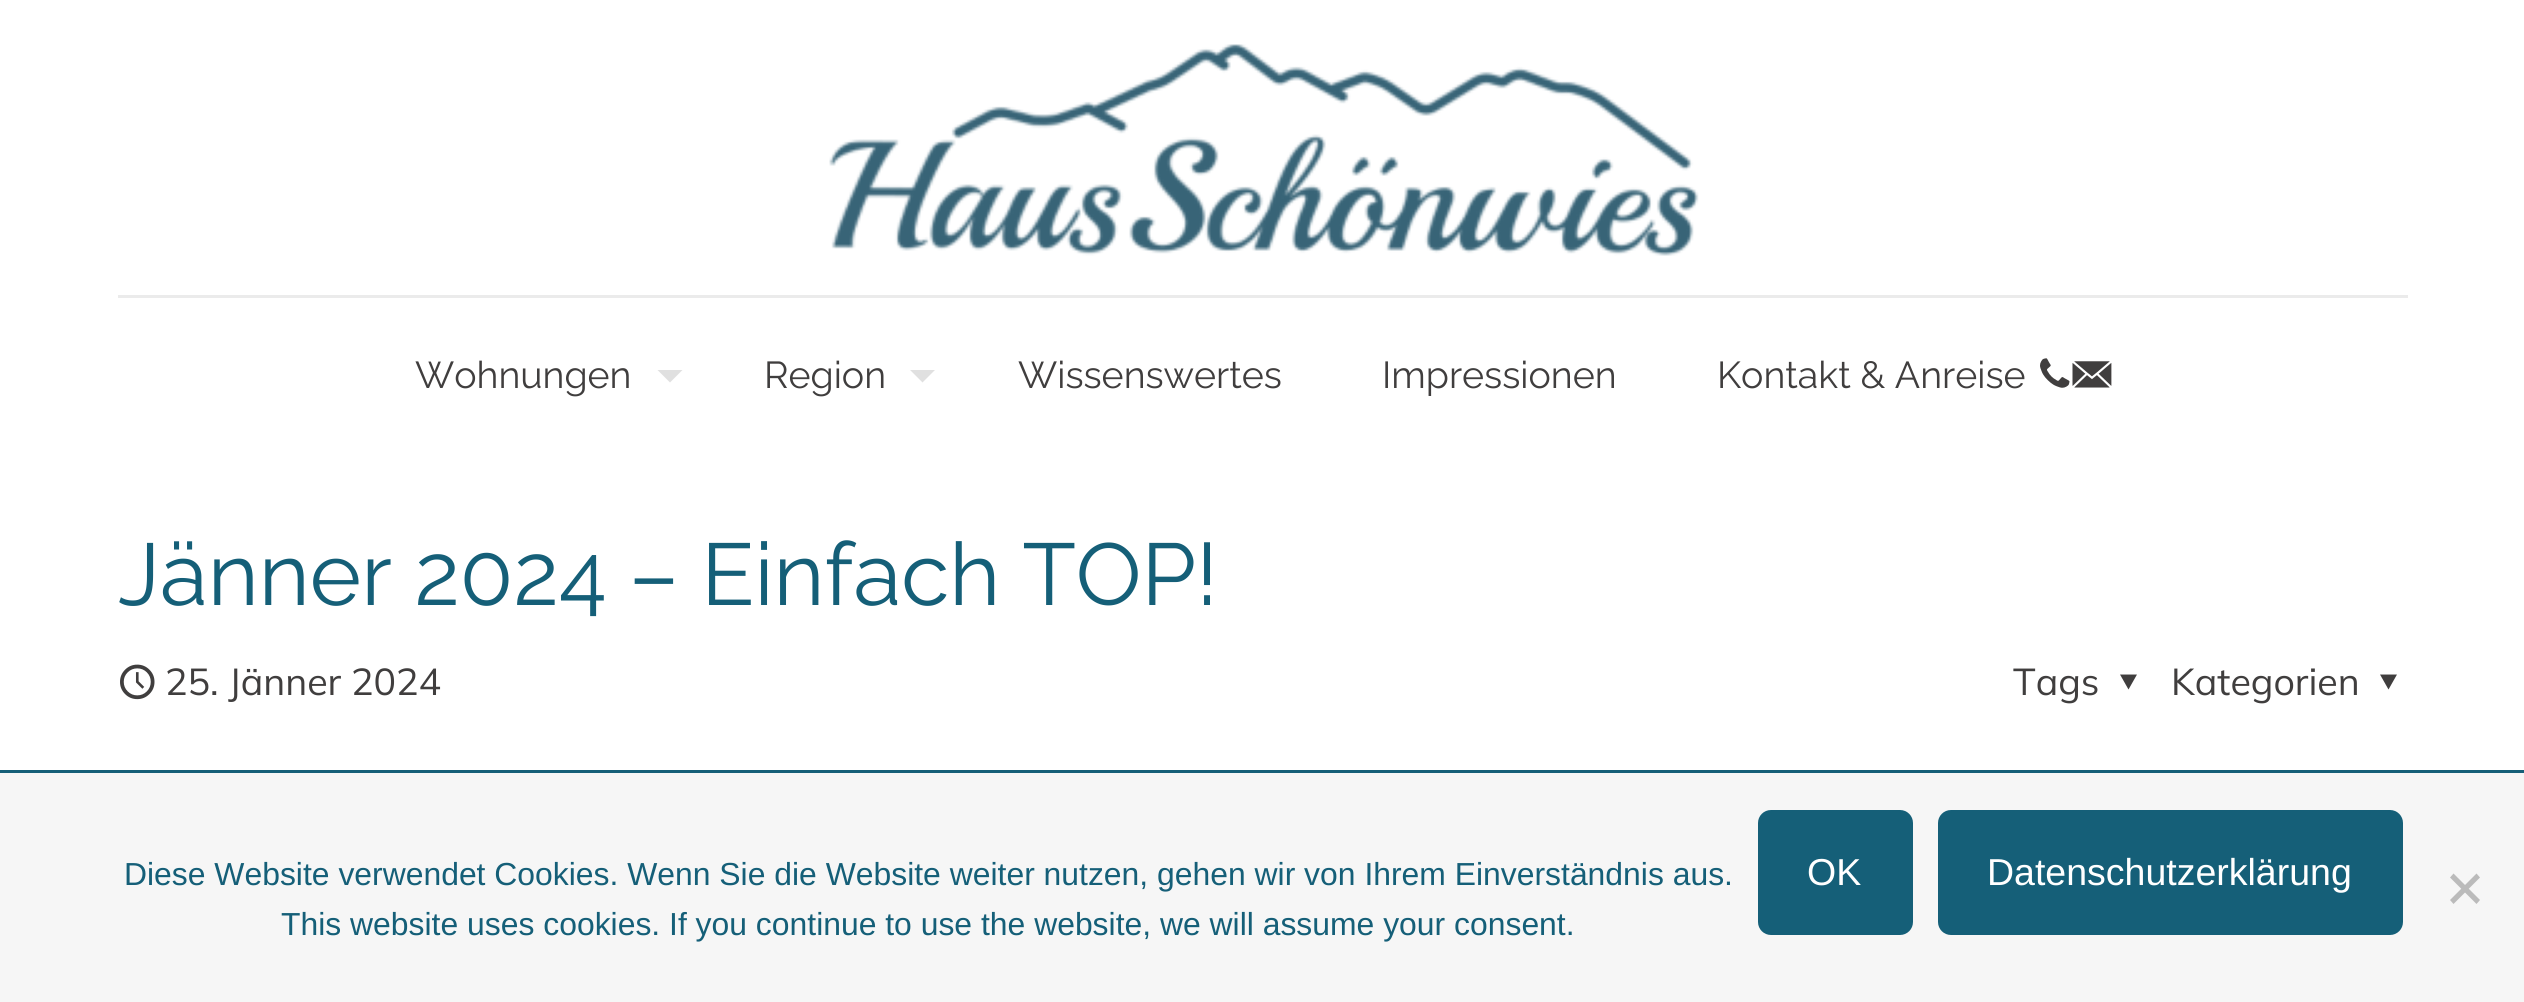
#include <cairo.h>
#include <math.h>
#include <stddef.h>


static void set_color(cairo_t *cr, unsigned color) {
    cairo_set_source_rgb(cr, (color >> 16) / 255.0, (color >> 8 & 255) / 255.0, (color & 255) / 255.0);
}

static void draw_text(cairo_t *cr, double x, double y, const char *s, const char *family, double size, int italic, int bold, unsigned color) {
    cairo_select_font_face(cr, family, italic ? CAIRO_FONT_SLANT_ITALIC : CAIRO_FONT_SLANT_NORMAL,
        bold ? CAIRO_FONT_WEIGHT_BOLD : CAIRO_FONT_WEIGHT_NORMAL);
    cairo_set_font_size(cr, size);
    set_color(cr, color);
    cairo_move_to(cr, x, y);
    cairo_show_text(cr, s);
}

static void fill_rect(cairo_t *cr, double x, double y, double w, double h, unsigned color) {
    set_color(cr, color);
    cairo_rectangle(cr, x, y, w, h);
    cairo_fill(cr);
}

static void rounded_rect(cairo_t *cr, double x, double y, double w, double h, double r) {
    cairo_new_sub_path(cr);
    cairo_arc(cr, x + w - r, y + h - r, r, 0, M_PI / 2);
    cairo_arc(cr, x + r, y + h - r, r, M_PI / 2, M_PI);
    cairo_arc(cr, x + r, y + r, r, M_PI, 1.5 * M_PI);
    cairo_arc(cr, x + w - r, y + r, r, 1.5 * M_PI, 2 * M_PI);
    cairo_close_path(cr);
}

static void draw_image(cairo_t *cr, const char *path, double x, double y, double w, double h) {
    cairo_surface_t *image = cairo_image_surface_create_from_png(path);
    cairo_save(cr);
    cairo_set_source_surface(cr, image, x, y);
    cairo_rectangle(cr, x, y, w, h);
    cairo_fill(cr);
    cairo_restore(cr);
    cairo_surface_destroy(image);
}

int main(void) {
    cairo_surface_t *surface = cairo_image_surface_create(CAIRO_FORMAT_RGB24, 2524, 1002);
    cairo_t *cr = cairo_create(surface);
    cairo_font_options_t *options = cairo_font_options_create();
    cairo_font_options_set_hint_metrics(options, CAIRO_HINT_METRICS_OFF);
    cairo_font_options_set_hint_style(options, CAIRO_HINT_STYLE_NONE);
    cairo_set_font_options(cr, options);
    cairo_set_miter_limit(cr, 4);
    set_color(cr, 0xFFFFFF);
    cairo_paint(cr);
    fill_rect(cr, 118, 295, 2290, 3, 0xEBEBEB);
    draw_image(cr, "assets/img1.png", 829, 44, 870, 212);
    draw_text(cr, 415, 388, "Wohnungen", "Raleway", 37.5, 0, 0, 0x403E3E);
    set_color(cr, 0xE0E0E0);
    cairo_new_path(cr);
    cairo_move_to(cr, 657.5, 370);
    cairo_line_to(cr, 682.5, 370);
    cairo_line_to(cr, 670, 382.5);
    cairo_close_path(cr);
    cairo_fill(cr);
    draw_text(cr, 764, 388, "Region", "Raleway", 37.5, 0, 0, 0x403E3E);
    set_color(cr, 0xE0E0E0);
    cairo_new_path(cr);
    cairo_move_to(cr, 910, 370);
    cairo_line_to(cr, 935, 370);
    cairo_line_to(cr, 922.5, 382.5);
    cairo_close_path(cr);
    cairo_fill(cr);
    draw_text(cr, 1018, 388, "Wissenswertes", "Raleway", 37.5, 0, 0, 0x403E3E);
    draw_text(cr, 1382, 388, "Impressionen", "Raleway", 37.5, 0, 0, 0x403E3E);
    draw_text(cr, 1717, 388, "Kontakt & Anreise", "Raleway", 37.5, 0, 0, 0x403E3E);
    draw_image(cr, "assets/img2.png", 2040, 358, 30, 30);
    draw_image(cr, "assets/img3.png", 2072, 361, 40, 27);
    draw_text(cr, 118, 605, "Jänner 2024 – Einfach TOP!", "Raleway", 87.5, 0, 0, 0x155F78);
    draw_image(cr, "assets/img4.png", 120, 664, 35, 36);
    draw_text(cr, 165, 695, "25. Jänner 2024", "Mulish", 37.5, 0, 0, 0x403E3E);
    draw_text(cr, 2013, 695, "Tags", "Mulish", 37.5, 0, 0, 0x403E3E);
    cairo_new_path(cr);
    cairo_move_to(cr, 2137, 674.5);
    cairo_line_to(cr, 2128.5, 689.5);
    cairo_line_to(cr, 2120, 674.5);
    cairo_close_path(cr);
    cairo_fill(cr);
    draw_text(cr, 2171, 695, "Kategorien", "Mulish", 37.5, 0, 0, 0x403E3E);
    cairo_new_path(cr);
    cairo_move_to(cr, 2397, 674.5);
    cairo_line_to(cr, 2388.5, 689.5);
    cairo_line_to(cr, 2380, 674.5);
    cairo_close_path(cr);
    cairo_fill(cr);
    fill_rect(cr, 0, 773, 2524, 229, 0xF6F6F6);
    fill_rect(cr, 0, 770, 2524, 3, 0x155F78);
    draw_text(cr, 124, 885, "Diese Website verwendet Cookies. Wenn Sie die Website weiter nutzen, gehen wir von Ihrem Einverständnis aus.", "Liberation Sans", 31.88, 0, 0, 0x155F78);
    draw_text(cr, 281, 935, "This website uses cookies. If you continue to use the website, we will assume your consent.", "Liberation Sans", 31.88, 0, 0, 0x155F78);
    rounded_rect(cr, 1758, 810, 155, 125, 13);
    cairo_fill(cr);
    draw_text(cr, 1807, 885, "OK", "Liberation Sans", 37.5, 0, 0, 0xFFFFFF);
    set_color(cr, 0x155F78);
    rounded_rect(cr, 1938, 810, 465, 125, 13);
    cairo_fill(cr);
    draw_text(cr, 1987, 885, "Datenschutzerklärung", "Liberation Sans", 37.5, 0, 0, 0xFFFFFF);
    set_color(cr, 0xBBBBBB);
    cairo_new_path(cr);
    cairo_move_to(cr, 2476.5, 873.5);
    cairo_line_to(cr, 2480, 877.5);
    cairo_line_to(cr, 2453.5, 904);
    cairo_line_to(cr, 2450, 900);
    cairo_close_path(cr);
    cairo_fill(cr);
    cairo_new_path(cr);
    cairo_move_to(cr, 2450, 877.5);
    cairo_line_to(cr, 2453.5, 873.5);
    cairo_line_to(cr, 2480, 900);
    cairo_line_to(cr, 2476.5, 904);
    cairo_close_path(cr);
    cairo_fill(cr);
    cairo_surface_write_to_png(surface, "output.png");
    cairo_font_options_destroy(options);
    cairo_destroy(cr);
    cairo_surface_destroy(surface);
    return 0;
}
